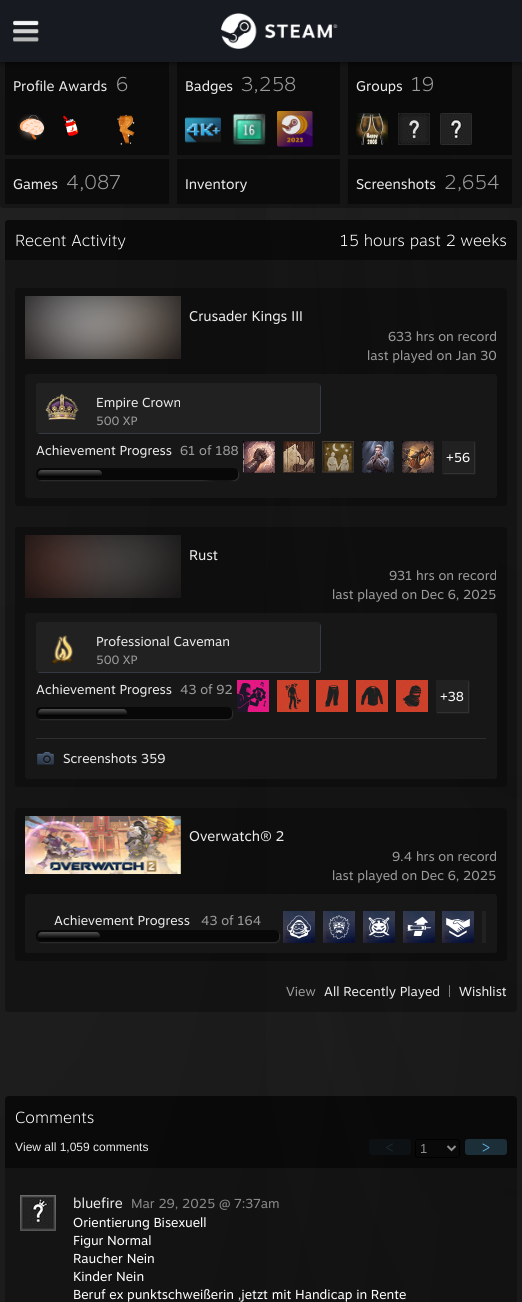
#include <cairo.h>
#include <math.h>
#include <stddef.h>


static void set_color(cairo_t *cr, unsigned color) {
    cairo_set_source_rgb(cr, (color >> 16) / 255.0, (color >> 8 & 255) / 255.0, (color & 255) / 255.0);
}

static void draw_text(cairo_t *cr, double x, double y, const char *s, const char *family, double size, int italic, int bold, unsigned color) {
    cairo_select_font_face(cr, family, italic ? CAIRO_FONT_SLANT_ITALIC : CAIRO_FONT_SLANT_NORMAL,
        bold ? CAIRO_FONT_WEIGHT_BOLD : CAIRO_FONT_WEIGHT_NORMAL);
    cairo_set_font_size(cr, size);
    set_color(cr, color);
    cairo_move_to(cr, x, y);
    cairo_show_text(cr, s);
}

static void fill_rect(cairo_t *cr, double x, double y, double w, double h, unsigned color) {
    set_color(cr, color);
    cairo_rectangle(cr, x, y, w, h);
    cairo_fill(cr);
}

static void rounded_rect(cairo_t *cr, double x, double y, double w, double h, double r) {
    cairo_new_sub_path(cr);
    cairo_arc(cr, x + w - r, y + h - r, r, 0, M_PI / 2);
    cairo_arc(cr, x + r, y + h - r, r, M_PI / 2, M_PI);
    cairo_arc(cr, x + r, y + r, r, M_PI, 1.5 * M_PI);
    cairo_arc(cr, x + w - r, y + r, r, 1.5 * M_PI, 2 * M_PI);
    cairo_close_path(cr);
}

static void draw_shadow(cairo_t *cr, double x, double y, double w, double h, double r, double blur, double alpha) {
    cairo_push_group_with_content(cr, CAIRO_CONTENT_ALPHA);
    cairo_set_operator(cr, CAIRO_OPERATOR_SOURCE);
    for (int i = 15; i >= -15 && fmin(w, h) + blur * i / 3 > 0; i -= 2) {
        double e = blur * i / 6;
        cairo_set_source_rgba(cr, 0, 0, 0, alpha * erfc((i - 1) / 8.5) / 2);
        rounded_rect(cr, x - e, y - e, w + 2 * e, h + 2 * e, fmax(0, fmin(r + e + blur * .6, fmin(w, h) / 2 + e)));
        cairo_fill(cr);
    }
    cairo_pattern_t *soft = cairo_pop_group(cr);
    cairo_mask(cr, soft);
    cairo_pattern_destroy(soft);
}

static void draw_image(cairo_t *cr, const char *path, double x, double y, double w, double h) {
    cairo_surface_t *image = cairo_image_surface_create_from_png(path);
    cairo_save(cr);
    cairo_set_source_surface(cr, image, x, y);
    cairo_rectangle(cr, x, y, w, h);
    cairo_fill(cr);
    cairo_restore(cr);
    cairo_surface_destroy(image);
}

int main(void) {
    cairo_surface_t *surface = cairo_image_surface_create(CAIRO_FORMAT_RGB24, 522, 1302);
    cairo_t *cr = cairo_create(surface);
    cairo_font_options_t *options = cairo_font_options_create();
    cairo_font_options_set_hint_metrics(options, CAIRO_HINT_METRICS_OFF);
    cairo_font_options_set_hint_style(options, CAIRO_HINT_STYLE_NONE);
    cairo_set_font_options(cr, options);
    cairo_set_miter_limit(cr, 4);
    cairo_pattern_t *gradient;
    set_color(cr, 0xFFFFFF);
    cairo_paint(cr);
    gradient = cairo_pattern_create_radial(0, 0, 0, 0, 0, 1);
    cairo_pattern_set_matrix(gradient, &(cairo_matrix_t){1.0 / 738, 0, 0, 1.0 / 3466, -1.0 * 0 / 738, -1.0 * -8 / 3466});
    cairo_pattern_add_color_stop_rgba(gradient, 0, 0.129, 0.129, 0.129, 1);
    cairo_pattern_add_color_stop_rgba(gradient, 0.81, 0.086, 0.086, 0.086, 1);
    cairo_set_source(cr, gradient);
    cairo_pattern_destroy(gradient);
    cairo_rectangle(cr, 0, 62, 522, 1240);
    cairo_fill(cr);
    gradient = cairo_pattern_create_radial(0, 0, 0, 0, 0, 1);
    cairo_pattern_set_matrix(gradient, &(cairo_matrix_t){1.0 / 522, 0, 0, 1.0 / 2451, -1.0 * 522 / 522, -1.0 * -8 / 2451});
    cairo_pattern_add_color_stop_rgba(gradient, 0, 0.192, 0.192, 0.192, 0.23);
    cairo_pattern_add_color_stop_rgba(gradient, 0.96, 0.192, 0.192, 0.192, 0);
    cairo_set_source(cr, gradient);
    cairo_pattern_destroy(gradient);
    cairo_rectangle(cr, 266, 62, 256, 1240);
    cairo_fill(cr);
    cairo_set_source_rgba(cr, 0, 0, 0, 0.3);
    rounded_rect(cr, 0, 4, 522, 204, 3);
    cairo_fill(cr);
    fill_rect(cr, 5, 62, 164, 93, 0x0B0B0B);
    fill_rect(cr, 177, 62, 163, 93, 0x0B0B0B);
    fill_rect(cr, 348, 62, 164, 93, 0x0A0A0A);
    set_color(cr, 0x000000);
    draw_shadow(cr, 0, 0, 522, 62, 0, 3.5, 0.75);
    fill_rect(cr, 0, 0, 522, 62, 0x171A21);
    draw_image(cr, "assets/img1.png", 13, 20, 26, 22);
    draw_image(cr, "assets/img2.png", 221, 13, 117, 36);
    draw_text(cr, 13, 91, "Profile Awards", "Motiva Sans", 14, 0, 0, 0xEBEBEB);
    draw_text(cr, 116, 91, "6", "Motiva Sans Thin", 20, 0, 0, 0x9B9B9B);
    draw_image(cr, "assets/img3.png", 17, 114, 28, 27);
    draw_image(cr, "assets/img4.png", 63, 115, 16, 21);
    draw_image(cr, "assets/img5.png", 117, 114, 18, 31);
    draw_text(cr, 185, 91, "Badges", "Motiva Sans", 14, 0, 0, 0xEBEBEB);
    draw_text(cr, 241, 91, "3,258", "Motiva Sans Thin", 20, 0, 0, 0x9B9B9B);
    draw_image(cr, "assets/img6.png", 185, 117, 36, 26);
    draw_image(cr, "assets/img7.png", 232, 113, 34, 32);
    draw_image(cr, "assets/img8.png", 277, 111, 36, 36);
    draw_text(cr, 356, 91, "Groups", "Motiva Sans", 14, 0, 0, 0xEBEBEB);
    draw_text(cr, 411, 91, "19", "Motiva Sans Thin", 20, 0, 0, 0x9B9B9B);
    draw_image(cr, "assets/img9.png", 356, 113, 32, 32);
    draw_image(cr, "assets/img10.png", 398, 113, 32, 32);
    draw_image(cr, "assets/img11.png", 440, 113, 32, 32);
    fill_rect(cr, 5, 159, 164, 45, 0x0B0B0B);
    draw_text(cr, 13, 189, "Games", "Motiva Sans", 14, 0, 0, 0xEBEBEB);
    draw_text(cr, 66, 189, "4,087", "Motiva Sans Thin", 20, 0, 0, 0x9B9B9B);
    fill_rect(cr, 177, 159, 163, 45, 0x0B0B0B);
    draw_text(cr, 185, 189, "Inventory", "Motiva Sans", 14, 0, 0, 0xEBEBEB);
    fill_rect(cr, 348, 159, 164, 45, 0x0A0A0A);
    draw_text(cr, 356, 189, "Screenshots", "Motiva Sans", 14, 0, 0, 0xEBEBEB);
    draw_text(cr, 444, 189, "2,654", "Motiva Sans Thin", 20, 0, 0, 0x9B9B9B);
    cairo_set_source_rgba(cr, 0, 0, 0, 0.3);
    rounded_rect(cr, 5, 220, 512, 792, 3);
    cairo_fill(cr);
    cairo_set_source_rgba(cr, 0, 0, 0, 0.5);
    cairo_new_path(cr);
    cairo_move_to(cr, 8, 220);
    cairo_line_to(cr, 514, 220);
    cairo_curve_to(cr, 515.5, 220, 517, 221.5, 517, 223);
    cairo_line_to(cr, 517, 260);
    cairo_line_to(cr, 5, 260);
    cairo_line_to(cr, 5, 223);
    cairo_curve_to(cr, 5, 221.5, 6.5, 220, 8, 220);
    cairo_close_path(cr);
    cairo_fill(cr);
    draw_text(cr, 15, 246, "Recent Activity", "Motiva Sans Thin", 16, 0, 0, 0xFFFFFF);
    draw_text(cr, 340, 246, "15 hours past 2 weeks", "Motiva Sans Thin", 16, 0, 0, 0xFFFFFF);
    cairo_set_source_rgba(cr, 0, 0, 0, 0.3);
    rounded_rect(cr, 15, 288, 492, 218, 3);
    cairo_fill(cr);
    draw_image(cr, "assets/img12.png", 25, 296, 156, 63);
    draw_text(cr, 189, 321, "Crusader Kings III", "Motiva Sans", 14, 0, 0, 0xEBEBEB);
    draw_text(cr, 388, 341, "633 hrs on record", "Motiva Sans", 13, 0, 0, 0x9B9B9B);
    draw_text(cr, 367, 360, "last played on Jan 30", "Motiva Sans", 13, 0, 0, 0x9B9B9B);
    set_color(cr, 0x171717);
    rounded_rect(cr, 25, 374, 472, 124, 3);
    cairo_fill(cr);
    set_color(cr, 0x343944);
    cairo_new_path(cr);
    cairo_move_to(cr, 37, 433);
    cairo_curve_to(cr, 38, 433, 39, 434, 40, 434);
    cairo_line_to(cr, 318, 434);
    cairo_curve_to(cr, 320, 434, 321, 433, 321, 431);
    cairo_line_to(cr, 321, 387);
    cairo_curve_to(cr, 321, 386, 320, 385, 320, 384);
    cairo_line_to(cr, 320, 386);
    cairo_line_to(cr, 320, 430);
    cairo_curve_to(cr, 320, 432, 319, 433, 317, 433);
    cairo_line_to(cr, 39, 433);
    cairo_close_path(cr);
    cairo_fill(cr);
    set_color(cr, 0x212121);
    cairo_new_path(cr);
    cairo_move_to(cr, 39, 383);
    cairo_line_to(cr, 317, 383);
    cairo_curve_to(cr, 319, 383, 320, 384, 320, 386);
    cairo_line_to(cr, 320, 430);
    cairo_curve_to(cr, 320, 432, 319, 433, 317, 433);
    cairo_line_to(cr, 39, 433);
    cairo_curve_to(cr, 37, 433, 36, 432, 36, 430);
    cairo_line_to(cr, 36, 386);
    cairo_curve_to(cr, 36, 384, 37, 383, 39, 383);
    cairo_close_path(cr);
    cairo_fill(cr);
    draw_image(cr, "assets/img13.png", 45, 393, 34, 27);
    draw_text(cr, 96, 407, "Empire Crown", "Motiva Sans", 13, 0, 0, 0xEBEBEB);
    draw_text(cr, 96, 425, "500 XP", "Motiva Sans", 12, 0, 0, 0x9B9B9B);
    draw_text(cr, 36, 455, "Achievement Progress", "Motiva Sans", 13, 0, 0, 0xEBEBEB);
    draw_text(cr, 180, 455, "61 of 188", "Motiva Sans", 13, 0, 0, 0x9B9B9B);
    cairo_save(cr);
    cairo_set_fill_rule(cr, CAIRO_FILL_RULE_EVEN_ODD);
    cairo_new_path(cr);
    cairo_move_to(cr, 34, 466);
    cairo_line_to(cr, 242, 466);
    cairo_line_to(cr, 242, 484);
    cairo_line_to(cr, 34, 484);
    cairo_close_path(cr);
    cairo_move_to(cr, 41, 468);
    cairo_line_to(cr, 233, 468);
    cairo_curve_to(cr, 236, 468, 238, 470, 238, 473);
    cairo_line_to(cr, 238, 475);
    cairo_curve_to(cr, 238, 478, 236, 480, 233, 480);
    cairo_line_to(cr, 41, 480);
    cairo_curve_to(cr, 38, 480, 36, 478, 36, 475);
    cairo_line_to(cr, 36, 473);
    cairo_curve_to(cr, 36, 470, 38, 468, 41, 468);
    cairo_close_path(cr);
    cairo_clip(cr);
    set_color(cr, 0xFFFFFF);
    draw_shadow(cr, 37, 469, 202, 12, 5, 0.5, 0.1);
    cairo_restore(cr);
    cairo_set_source_rgba(cr, 0, 0, 0, 0.3);
    rounded_rect(cr, 36, 468, 202, 12, 5);
    cairo_fill(cr);
    cairo_set_source_rgba(cr, 0, 0, 0, 0.5);
    cairo_new_path(cr);
    cairo_move_to(cr, 41, 468);
    cairo_line_to(cr, 233, 468);
    cairo_curve_to(cr, 234, 468, 236, 469, 237, 469);
    cairo_curve_to(cr, 238, 471, 238, 473, 238, 475);
    cairo_curve_to(cr, 238, 486, 209, 480, 201, 480);
    cairo_line_to(cr, 40, 480);
    cairo_curve_to(cr, 34, 479, 35, 468, 41, 468);
    cairo_close_path(cr);
    cairo_fill(cr);
    gradient = cairo_pattern_create_linear(70, 470, 70, 478);
    cairo_pattern_add_color_stop_rgba(gradient, 0, 0.322, 0.322, 0.322, 1);
    cairo_pattern_add_color_stop_rgba(gradient, 0.8, 0.016, 0.016, 0.016, 1);
    cairo_set_source(cr, gradient);
    cairo_pattern_destroy(gradient);
    rounded_rect(cr, 38, 470, 64, 8, 4);
    cairo_fill(cr);
    draw_image(cr, "assets/img14.png", 243, 441, 32, 32);
    draw_image(cr, "assets/img15.png", 283, 441, 32, 32);
    draw_image(cr, "assets/img16.png", 322, 441, 32, 32);
    draw_image(cr, "assets/img17.png", 362, 441, 32, 32);
    draw_image(cr, "assets/img18.png", 402, 441, 32, 32);
    set_color(cr, 0x353535);
    draw_shadow(cr, 443, 442, 32, 32, 0, 0.5, 1);
    fill_rect(cr, 442, 441, 32, 32, 0x212121);
    draw_text(cr, 446, 462, "+56", "Motiva Sans", 13, 0, 0, 0xFFFFFF);
    cairo_set_source_rgba(cr, 0, 0, 0, 0.3);
    rounded_rect(cr, 15, 527, 492, 260, 3);
    cairo_fill(cr);
    draw_image(cr, "assets/img19.png", 25, 535, 156, 63);
    draw_text(cr, 189, 560, "Rust", "Motiva Sans", 14, 0, 0, 0xEBEBEB);
    draw_text(cr, 389, 580, "931 hrs on record", "Motiva Sans", 13, 0, 0, 0x9B9B9B);
    draw_text(cr, 332, 599, "last played on Dec 6, 2025", "Motiva Sans", 13, 0, 0, 0x9B9B9B);
    set_color(cr, 0x171717);
    rounded_rect(cr, 25, 613, 472, 166, 3);
    cairo_fill(cr);
    set_color(cr, 0x343944);
    cairo_new_path(cr);
    cairo_move_to(cr, 37, 672);
    cairo_curve_to(cr, 38, 672, 39, 673, 40, 673);
    cairo_line_to(cr, 318, 673);
    cairo_curve_to(cr, 320, 673, 321, 672, 321, 670);
    cairo_line_to(cr, 321, 626);
    cairo_curve_to(cr, 321, 625, 320, 624, 320, 623);
    cairo_line_to(cr, 320, 625);
    cairo_line_to(cr, 320, 669);
    cairo_curve_to(cr, 320, 671, 319, 672, 317, 672);
    cairo_line_to(cr, 39, 672);
    cairo_close_path(cr);
    cairo_fill(cr);
    set_color(cr, 0x212121);
    cairo_new_path(cr);
    cairo_move_to(cr, 39, 622);
    cairo_line_to(cr, 317, 622);
    cairo_curve_to(cr, 319, 622, 320, 623, 320, 625);
    cairo_line_to(cr, 320, 669);
    cairo_curve_to(cr, 320, 671, 319, 672, 317, 672);
    cairo_line_to(cr, 39, 672);
    cairo_curve_to(cr, 37, 672, 36, 671, 36, 669);
    cairo_line_to(cr, 36, 625);
    cairo_curve_to(cr, 36, 623, 37, 622, 39, 622);
    cairo_close_path(cr);
    cairo_fill(cr);
    draw_image(cr, "assets/img20.png", 52, 635, 21, 30);
    draw_text(cr, 96, 646, "Professional Caveman", "Motiva Sans", 13, 0, 0, 0xEBEBEB);
    draw_text(cr, 96, 664, "500 XP", "Motiva Sans", 12, 0, 0, 0x9B9B9B);
    draw_text(cr, 36, 694, "Achievement Progress", "Motiva Sans", 13, 0, 0, 0xEBEBEB);
    draw_text(cr, 180, 694, "43 of 92", "Motiva Sans", 13, 0, 0, 0x9B9B9B);
    cairo_save(cr);
    cairo_set_fill_rule(cr, CAIRO_FILL_RULE_EVEN_ODD);
    cairo_new_path(cr);
    cairo_move_to(cr, 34, 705);
    cairo_line_to(cr, 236, 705);
    cairo_line_to(cr, 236, 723);
    cairo_line_to(cr, 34, 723);
    cairo_close_path(cr);
    cairo_move_to(cr, 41, 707);
    cairo_line_to(cr, 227, 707);
    cairo_curve_to(cr, 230, 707, 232, 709, 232, 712);
    cairo_line_to(cr, 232, 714);
    cairo_curve_to(cr, 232, 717, 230, 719, 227, 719);
    cairo_line_to(cr, 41, 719);
    cairo_curve_to(cr, 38, 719, 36, 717, 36, 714);
    cairo_line_to(cr, 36, 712);
    cairo_curve_to(cr, 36, 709, 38, 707, 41, 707);
    cairo_close_path(cr);
    cairo_clip(cr);
    set_color(cr, 0xFFFFFF);
    draw_shadow(cr, 37, 708, 196, 12, 5, 0.5, 0.1);
    cairo_restore(cr);
    cairo_set_source_rgba(cr, 0, 0, 0, 0.3);
    rounded_rect(cr, 36, 707, 196, 12, 5);
    cairo_fill(cr);
    cairo_set_source_rgba(cr, 0, 0, 0, 0.5);
    cairo_new_path(cr);
    cairo_move_to(cr, 41, 707);
    cairo_line_to(cr, 227, 707);
    cairo_curve_to(cr, 230, 707, 232, 709, 232, 712);
    cairo_line_to(cr, 232, 714);
    cairo_curve_to(cr, 232, 717, 230, 719, 227, 719);
    cairo_line_to(cr, 41, 719);
    cairo_curve_to(cr, 38, 719, 36, 717, 36, 714);
    cairo_line_to(cr, 36, 712);
    cairo_curve_to(cr, 36, 709, 38, 707, 41, 707);
    cairo_close_path(cr);
    cairo_fill(cr);
    gradient = cairo_pattern_create_linear(83, 709, 83, 717);
    cairo_pattern_add_color_stop_rgba(gradient, 0, 0.322, 0.322, 0.322, 1);
    cairo_pattern_add_color_stop_rgba(gradient, 0.8, 0.016, 0.016, 0.016, 1);
    cairo_set_source(cr, gradient);
    cairo_pattern_destroy(gradient);
    rounded_rect(cr, 38, 709, 89, 8, 4);
    cairo_fill(cr);
    draw_image(cr, "assets/img21.png", 237, 680, 32, 32);
    draw_image(cr, "assets/img22.png", 277, 680, 32, 32);
    draw_image(cr, "assets/img23.png", 316, 680, 32, 32);
    draw_image(cr, "assets/img24.png", 356, 680, 32, 32);
    draw_image(cr, "assets/img25.png", 396, 680, 32, 32);
    set_color(cr, 0x353535);
    draw_shadow(cr, 437, 681, 32, 32, 0, 0.5, 1);
    fill_rect(cr, 436, 680, 32, 32, 0x212121);
    draw_text(cr, 440, 701, "+38", "Motiva Sans", 13, 0, 0, 0xFFFFFF);
    fill_rect(cr, 36, 738, 450, 1, 0x2E2E2E);
    draw_image(cr, "assets/img26.png", 37, 752, 17, 13);
    draw_text(cr, 63, 763, "Screenshots 359", "Motiva Sans", 13, 0, 0, 0xEBEBEB);
    cairo_set_source_rgba(cr, 0, 0, 0, 0.3);
    rounded_rect(cr, 15, 808, 492, 153, 3);
    cairo_fill(cr);
    draw_image(cr, "assets/img27.png", 25, 816, 156, 58);
    draw_text(cr, 189, 841, "Overwatch® 2", "Motiva Sans", 14, 0, 0, 0xEBEBEB);
    draw_text(cr, 392, 861, "9.4 hrs on record", "Motiva Sans", 13, 0, 0, 0x9B9B9B);
    draw_text(cr, 332, 880, "last played on Dec 6, 2025", "Motiva Sans", 13, 0, 0, 0x9B9B9B);
    set_color(cr, 0x171717);
    rounded_rect(cr, 25, 894, 472, 59, 3);
    cairo_fill(cr);
    draw_text(cr, 54, 925, "Achievement Progress", "Motiva Sans", 13, 0, 0, 0xEBEBEB);
    draw_text(cr, 201, 925, "43 of 164", "Motiva Sans", 13, 0, 0, 0x9B9B9B);
    cairo_save(cr);
    cairo_set_fill_rule(cr, CAIRO_FILL_RULE_EVEN_ODD);
    cairo_new_path(cr);
    cairo_move_to(cr, 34, 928);
    cairo_line_to(cr, 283, 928);
    cairo_line_to(cr, 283, 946);
    cairo_line_to(cr, 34, 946);
    cairo_close_path(cr);
    cairo_move_to(cr, 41, 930);
    cairo_line_to(cr, 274, 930);
    cairo_curve_to(cr, 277, 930, 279, 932, 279, 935);
    cairo_line_to(cr, 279, 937);
    cairo_curve_to(cr, 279, 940, 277, 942, 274, 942);
    cairo_line_to(cr, 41, 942);
    cairo_curve_to(cr, 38, 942, 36, 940, 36, 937);
    cairo_line_to(cr, 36, 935);
    cairo_curve_to(cr, 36, 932, 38, 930, 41, 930);
    cairo_close_path(cr);
    cairo_clip(cr);
    set_color(cr, 0xFFFFFF);
    draw_shadow(cr, 37, 931, 243, 12, 5, 0.5, 0.1);
    cairo_restore(cr);
    cairo_set_source_rgba(cr, 0, 0, 0, 0.3);
    rounded_rect(cr, 36, 930, 243, 12, 5);
    cairo_fill(cr);
    cairo_set_source_rgba(cr, 0, 0, 0, 0.5);
    cairo_new_path(cr);
    cairo_move_to(cr, 41, 930);
    cairo_line_to(cr, 274, 930);
    cairo_curve_to(cr, 277, 930, 279, 932, 279, 935);
    cairo_line_to(cr, 279, 937);
    cairo_curve_to(cr, 279, 940, 277, 942, 274, 942);
    cairo_line_to(cr, 41, 942);
    cairo_curve_to(cr, 38, 942, 36, 940, 36, 937);
    cairo_line_to(cr, 36, 935);
    cairo_curve_to(cr, 36, 932, 38, 930, 41, 930);
    cairo_close_path(cr);
    cairo_fill(cr);
    gradient = cairo_pattern_create_linear(69, 932, 69, 940);
    cairo_pattern_add_color_stop_rgba(gradient, 0, 0.322, 0.322, 0.322, 1);
    cairo_pattern_add_color_stop_rgba(gradient, 0.8, 0.016, 0.016, 0.016, 1);
    cairo_set_source(cr, gradient);
    cairo_pattern_destroy(gradient);
    rounded_rect(cr, 38, 932, 62, 8, 4);
    cairo_fill(cr);
    draw_image(cr, "assets/img28.png", 283, 911, 32, 32);
    draw_image(cr, "assets/img29.png", 323, 911, 32, 32);
    draw_image(cr, "assets/img30.png", 363, 911, 32, 32);
    draw_image(cr, "assets/img31.png", 403, 911, 32, 32);
    draw_image(cr, "assets/img32.png", 442, 911, 32, 32);
    fill_rect(cr, 482, 911, 4, 32, 0x212121);
    draw_text(cr, 286, 996, "View", "Motiva Sans", 13, 0, 0, 0x9B9B9B);
    draw_text(cr, 324, 996, "All Recently Played", "Motiva Sans", 13, 0, 0, 0xEBEBEB);
    draw_text(cr, 448, 996, "|", "Motiva Sans", 13, 0, 0, 0x9B9B9B);
    draw_text(cr, 459, 996, "Wishlist", "Motiva Sans", 13, 0, 0, 0xEBEBEB);
    cairo_set_source_rgba(cr, 0, 0, 0, 0.3);
    rounded_rect(cr, 5, 1096, 512, 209, 3);
    cairo_fill(cr);
    cairo_set_source_rgba(cr, 0, 0, 0, 0.5);
    cairo_new_path(cr);
    cairo_move_to(cr, 10, 1096);
    cairo_line_to(cr, 512, 1096);
    cairo_curve_to(cr, 515, 1096, 517, 1098, 517, 1101);
    cairo_line_to(cr, 517, 1168);
    cairo_line_to(cr, 5, 1168);
    cairo_line_to(cr, 5, 1101);
    cairo_curve_to(cr, 5, 1098, 7, 1096, 10, 1096);
    cairo_close_path(cr);
    cairo_fill(cr);
    draw_text(cr, 15, 1123, "Comments", "Motiva Sans Thin", 16, 0, 0, 0xFFFFFF);
    draw_text(cr, 15, 1151, "View all 1,059 comments", "Liberation Sans", 12, 0, 0, 0xEBEBEB);
    set_color(cr, 0x0D1113);
    rounded_rect(cr, 369, 1139, 42, 16, 3);
    cairo_fill(cr);
    draw_text(cr, 385, 1153, "<", "Motiva Sans Thin", 16, 0, 0, 0x1C2E38);
    rounded_rect(cr, 415.5, 1139.5, 44, 18, 2.5);
    set_color(cr, 0x000000);
    cairo_set_line_width(cr, 1);
    cairo_stroke(cr);
    cairo_new_path(cr);
    cairo_move_to(cr, 447.5, 1146);
    cairo_line_to(cr, 451.5, 1150);
    cairo_line_to(cr, 455.5, 1146);
    set_color(cr, 0x909090);
    cairo_set_line_width(cr, 2);
    cairo_stroke(cr);
    draw_text(cr, 420, 1153, "1", "Liberation Sans", 13, 0, 0, 0x909090);
    set_color(cr, 0x1C2E38);
    rounded_rect(cr, 465, 1139, 42, 16, 3);
    cairo_fill(cr);
    draw_text(cr, 481, 1153, ">", "Motiva Sans Thin", 16, 0, 0, 0x66C0F4);
    gradient = cairo_pattern_create_linear(38, 1195, 38, 1231);
    cairo_pattern_add_color_stop_rgba(gradient, 0.05, 0.416, 0.416, 0.416, 1);
    cairo_pattern_add_color_stop_rgba(gradient, 0.95, 0.333, 0.333, 0.333, 1);
    cairo_set_source(cr, gradient);
    cairo_pattern_destroy(gradient);
    cairo_rectangle(cr, 20, 1195, 36, 36);
    cairo_fill(cr);
    gradient = cairo_pattern_create_linear(38, 1196, 38, 1230);
    cairo_pattern_add_color_stop_rgba(gradient, 0.05, 0.318, 0.318, 0.318, 1);
    cairo_pattern_add_color_stop_rgba(gradient, 0.95, 0.278, 0.278, 0.278, 1);
    cairo_set_source(cr, gradient);
    cairo_pattern_destroy(gradient);
    cairo_rectangle(cr, 21, 1196, 34, 34);
    cairo_fill(cr);
    draw_image(cr, "assets/img33.png", 22, 1197, 32, 32);
    draw_text(cr, 73, 1208, "bluefire", "Motiva Sans", 14, 0, 0, 0xEBEBEB);
    draw_text(cr, 131, 1208, "Mar 29, 2025 @ 7:37am", "Motiva Sans", 13, 0, 0, 0x898989);
    draw_text(cr, 73, 1227, "Orientierung Bisexuell", "Motiva Sans", 13, 0, 0, 0xFFFFFF);
    draw_text(cr, 73, 1245, "Figur Normal", "Motiva Sans", 13, 0, 0, 0xFFFFFF);
    draw_text(cr, 73, 1263, "Raucher Nein", "Motiva Sans", 13, 0, 0, 0xFFFFFF);
    draw_text(cr, 73, 1281, "Kinder Nein", "Motiva Sans", 13, 0, 0, 0xFFFFFF);
    draw_text(cr, 73, 1299, "Beruf ex punktschweißerin ,jetzt mit Handicap in Rente", "Motiva Sans", 13, 0, 0, 0xFFFFFF);
    cairo_surface_write_to_png(surface, "output.png");
    cairo_font_options_destroy(options);
    cairo_destroy(cr);
    cairo_surface_destroy(surface);
    return 0;
}
